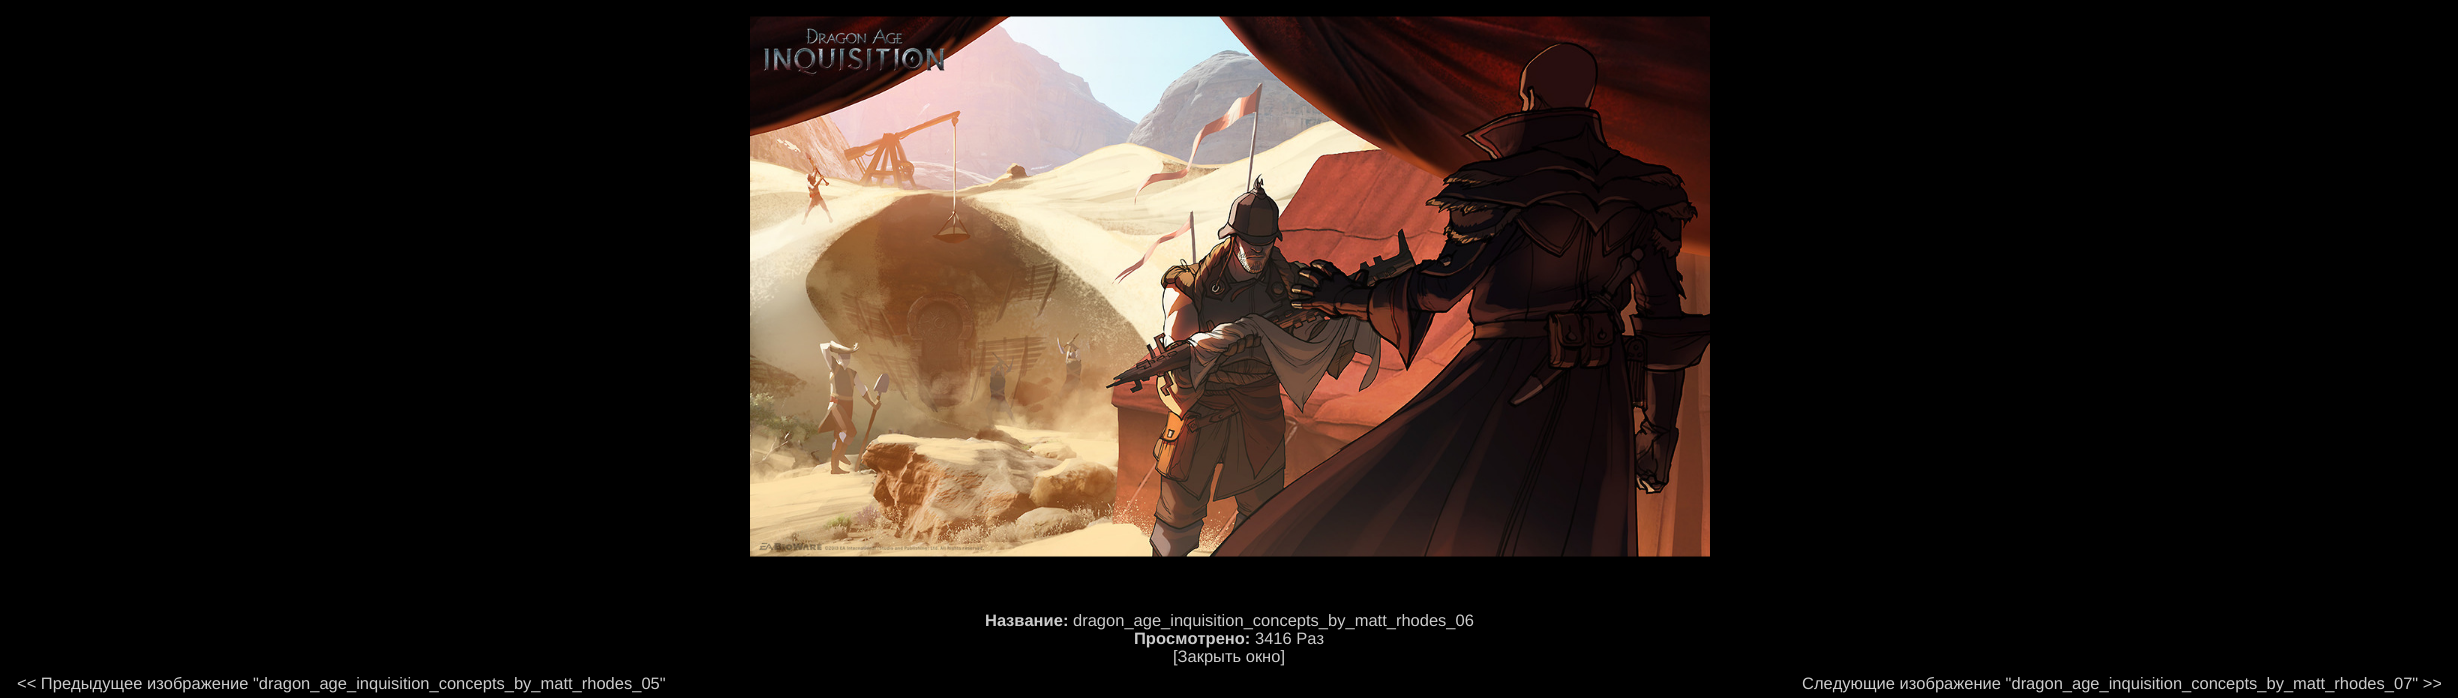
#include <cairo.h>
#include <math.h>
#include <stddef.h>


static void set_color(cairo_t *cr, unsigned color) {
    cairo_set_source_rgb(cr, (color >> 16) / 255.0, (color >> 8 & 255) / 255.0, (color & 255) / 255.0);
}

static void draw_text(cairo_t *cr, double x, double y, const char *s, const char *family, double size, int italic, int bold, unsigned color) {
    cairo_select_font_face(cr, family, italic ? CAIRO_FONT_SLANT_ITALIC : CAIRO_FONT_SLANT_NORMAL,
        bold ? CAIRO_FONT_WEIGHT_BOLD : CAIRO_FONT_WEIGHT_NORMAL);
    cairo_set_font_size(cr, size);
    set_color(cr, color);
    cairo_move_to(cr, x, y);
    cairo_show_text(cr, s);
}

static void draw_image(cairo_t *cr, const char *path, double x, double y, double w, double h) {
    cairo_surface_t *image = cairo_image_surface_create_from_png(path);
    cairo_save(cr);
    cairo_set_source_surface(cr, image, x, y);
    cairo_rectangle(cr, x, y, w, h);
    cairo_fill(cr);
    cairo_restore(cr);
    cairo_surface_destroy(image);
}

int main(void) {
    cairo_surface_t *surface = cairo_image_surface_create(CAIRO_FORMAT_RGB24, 2458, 698);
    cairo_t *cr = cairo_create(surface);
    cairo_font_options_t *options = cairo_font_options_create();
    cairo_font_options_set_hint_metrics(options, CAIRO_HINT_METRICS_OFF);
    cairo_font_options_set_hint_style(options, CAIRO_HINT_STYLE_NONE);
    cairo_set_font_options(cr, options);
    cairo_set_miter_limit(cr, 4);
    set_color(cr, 0x000000);
    cairo_paint(cr);
    draw_image(cr, "assets/img1.png", 750, 16, 960, 541);
    draw_text(cr, 985, 626, "Название:", "Liberation Sans", 16.5, 0, 1, 0xCCCCCC);
    draw_text(cr, 1073, 626, "dragon_age_inquisition_concepts_by_matt_rhodes_06", "Liberation Sans", 16.5, 0, 0, 0xCCCCCC);
    draw_text(cr, 1134, 644, "Просмотрено:", "Liberation Sans", 16.5, 0, 1, 0xCCCCCC);
    draw_text(cr, 1255, 644, "3416 Раз", "Liberation Sans", 16.5, 0, 0, 0xCCCCCC);
    draw_text(cr, 1173, 662, "[Закрыть окно]", "Liberation Sans", 16.5, 0, 0, 0xCCCCCC);
    draw_text(cr, 17, 689, "<< Предыдущее изображение \"dragon_age_inquisition_concepts_by_matt_rhodes_05\"", "Liberation Sans", 16.5, 0, 0, 0xCCCCCC);
    draw_text(cr, 1802, 689, "Следующие изображение \"dragon_age_inquisition_concepts_by_matt_rhodes_07\" >>", "Liberation Sans", 16.5, 0, 0, 0xCCCCCC);
    cairo_surface_write_to_png(surface, "output.png");
    cairo_font_options_destroy(options);
    cairo_destroy(cr);
    cairo_surface_destroy(surface);
    return 0;
}
